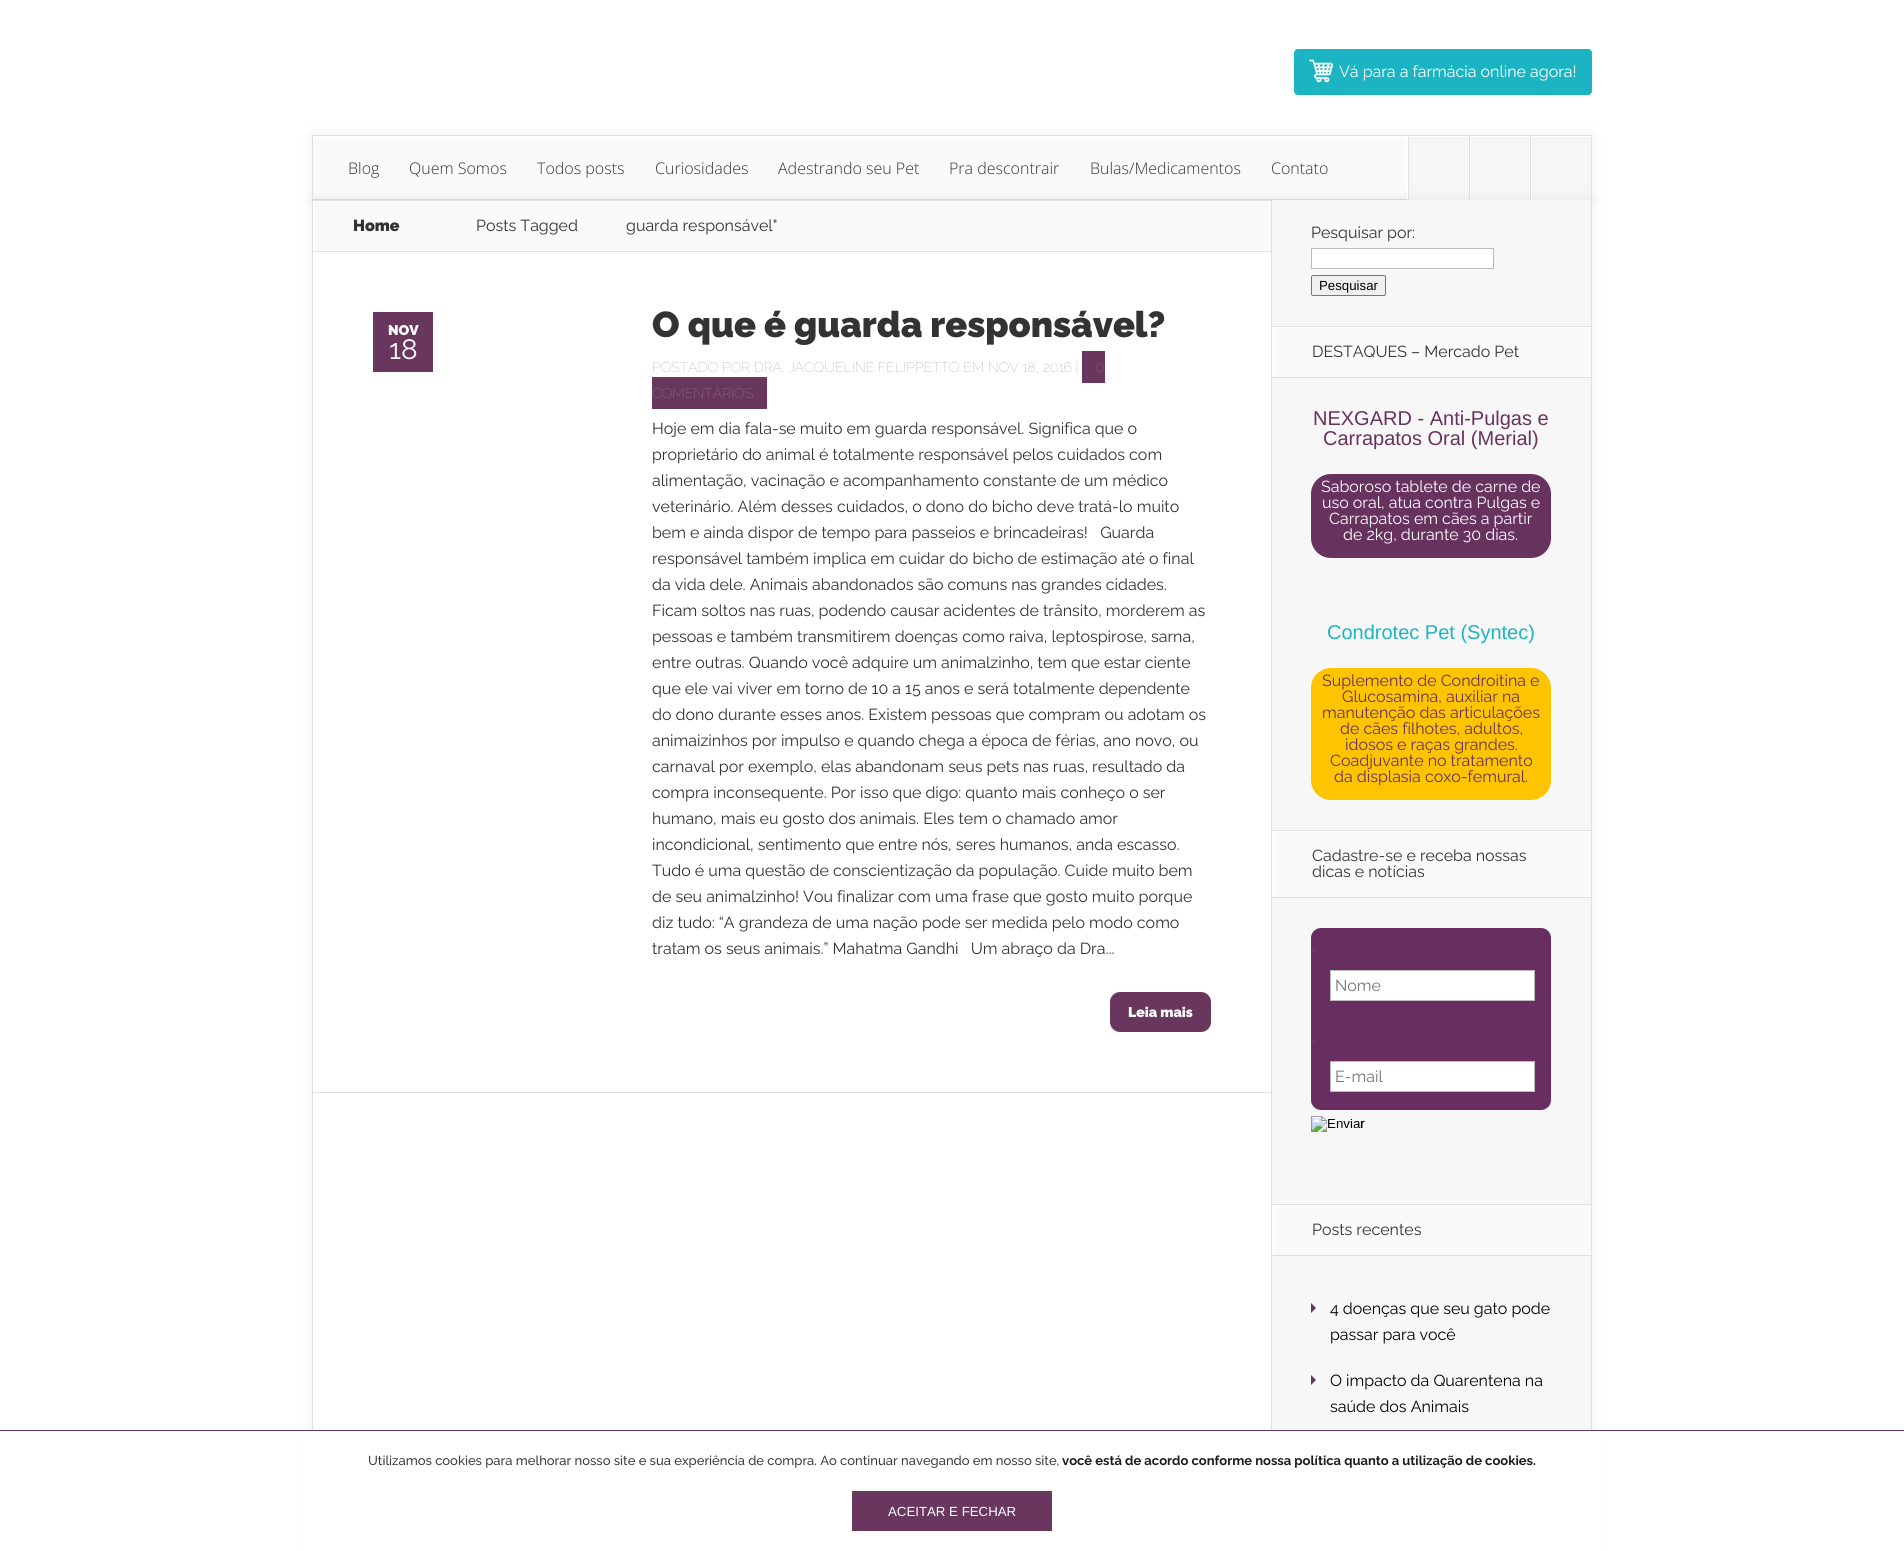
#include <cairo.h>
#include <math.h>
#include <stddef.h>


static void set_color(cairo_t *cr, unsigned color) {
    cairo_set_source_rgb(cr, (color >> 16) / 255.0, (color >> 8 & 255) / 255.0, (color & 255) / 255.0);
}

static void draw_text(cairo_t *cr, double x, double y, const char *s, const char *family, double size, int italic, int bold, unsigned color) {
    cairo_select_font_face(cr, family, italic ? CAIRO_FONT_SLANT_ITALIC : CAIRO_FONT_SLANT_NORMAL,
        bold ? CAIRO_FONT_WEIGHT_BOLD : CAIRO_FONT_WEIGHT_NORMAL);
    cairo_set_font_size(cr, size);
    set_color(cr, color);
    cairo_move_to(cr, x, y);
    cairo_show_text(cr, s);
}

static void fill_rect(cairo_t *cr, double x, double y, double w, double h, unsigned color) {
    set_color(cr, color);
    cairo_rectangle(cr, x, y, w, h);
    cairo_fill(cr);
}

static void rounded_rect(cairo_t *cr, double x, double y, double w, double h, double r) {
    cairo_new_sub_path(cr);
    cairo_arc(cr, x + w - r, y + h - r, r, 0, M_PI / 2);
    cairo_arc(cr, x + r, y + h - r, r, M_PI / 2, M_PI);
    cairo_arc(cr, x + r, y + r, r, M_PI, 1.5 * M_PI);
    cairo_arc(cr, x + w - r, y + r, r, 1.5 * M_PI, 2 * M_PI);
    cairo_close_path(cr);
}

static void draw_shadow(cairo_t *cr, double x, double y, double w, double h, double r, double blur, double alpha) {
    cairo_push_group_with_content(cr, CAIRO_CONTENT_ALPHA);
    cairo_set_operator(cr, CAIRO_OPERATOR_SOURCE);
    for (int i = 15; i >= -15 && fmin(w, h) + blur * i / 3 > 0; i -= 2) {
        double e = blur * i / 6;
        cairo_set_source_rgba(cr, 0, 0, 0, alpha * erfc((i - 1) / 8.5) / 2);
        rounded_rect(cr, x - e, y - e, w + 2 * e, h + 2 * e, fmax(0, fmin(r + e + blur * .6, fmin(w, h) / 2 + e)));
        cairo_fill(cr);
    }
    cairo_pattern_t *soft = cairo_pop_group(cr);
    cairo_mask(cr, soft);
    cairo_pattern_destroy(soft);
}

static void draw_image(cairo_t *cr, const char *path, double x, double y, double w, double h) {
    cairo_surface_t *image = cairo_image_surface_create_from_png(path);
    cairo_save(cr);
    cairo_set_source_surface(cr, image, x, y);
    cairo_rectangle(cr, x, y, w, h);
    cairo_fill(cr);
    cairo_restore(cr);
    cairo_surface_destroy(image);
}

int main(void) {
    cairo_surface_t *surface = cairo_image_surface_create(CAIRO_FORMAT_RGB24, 1904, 1551);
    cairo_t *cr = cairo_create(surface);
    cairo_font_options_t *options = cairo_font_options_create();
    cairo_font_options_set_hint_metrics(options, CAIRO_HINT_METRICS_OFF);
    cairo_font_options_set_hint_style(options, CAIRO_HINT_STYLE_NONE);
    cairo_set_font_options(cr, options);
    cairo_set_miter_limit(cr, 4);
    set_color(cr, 0xFFFFFF);
    cairo_paint(cr);
    set_color(cr, 0x1BB4C2);
    rounded_rect(cr, 1294, 49, 298, 46, 4);
    cairo_fill(cr);
    draw_image(cr, "assets/img1.png", 1309, 59, 24, 24);
    draw_text(cr, 1339, 77, "Vá para a farmácia online agora!", "Raleway", 16, 0, 0, 0xFFFFFF);
    set_color(cr, 0x000000);
    draw_shadow(cr, 312, 135, 1280, 65, 0, 7.5, 0.07);
    fill_rect(cr, 313, 137, 1094, 62, 0xFAFAFA);
    fill_rect(cr, 313, 199, 1094, 1, 0xDADADA);
    fill_rect(cr, 313, 136, 1094, 1, 0xFFFFFF);
    fill_rect(cr, 312, 135, 1280, 1, 0xE0E0E0);
    fill_rect(cr, 1591, 135, 1, 65, 0xE0E0E0);
    fill_rect(cr, 312, 135, 1, 65, 0xE0E0E0);
    draw_text(cr, 348, 174, "Blog", "Open Sans Light", 16, 0, 0, 0x333333);
    draw_text(cr, 409, 174, "Quem Somos", "Open Sans Light", 16, 0, 0, 0x333333);
    draw_text(cr, 537, 174, "Todos posts", "Open Sans Light", 16, 0, 0, 0x333333);
    draw_text(cr, 655, 174, "Curiosidades", "Open Sans Light", 16, 0, 0, 0x333333);
    draw_text(cr, 778, 174, "Adestrando seu Pet", "Open Sans Light", 16, 0, 0, 0x333333);
    draw_text(cr, 949, 174, "Pra descontrair", "Open Sans Light", 16, 0, 0, 0x333333);
    draw_text(cr, 1090, 174, "Bulas/Medicamentos", "Open Sans Light", 16, 0, 0, 0x333333);
    draw_text(cr, 1271, 174, "Contato", "Open Sans Light", 16, 0, 0, 0x333333);
    fill_rect(cr, 1407, 136, 1, 64, 0xFFFFFF);
    fill_rect(cr, 1409, 138, 182, 62, 0xF6F6F6);
    fill_rect(cr, 1408, 136, 183, 1, 0xFFFFFF);
    fill_rect(cr, 1408, 136, 1, 64, 0xE0E0E0);
    fill_rect(cr, 1470, 136, 1, 64, 0xFFFFFF);
    fill_rect(cr, 1469, 136, 1, 64, 0xE0E0E0);
    fill_rect(cr, 1531, 136, 1, 64, 0xFFFFFF);
    fill_rect(cr, 1530, 136, 1, 64, 0xE0E0E0);
    set_color(cr, 0x000000);
    draw_shadow(cr, 312, 200, 1280, 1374, 0, 7.5, 0.07);
    fill_rect(cr, 313, 252, 958, 1178, 0xFFFFFF);
    fill_rect(cr, 1591, 200, 1, 1230, 0xE0E0E0);
    fill_rect(cr, 312, 200, 1, 1230, 0xE0E0E0);
    fill_rect(cr, 1271, 200, 1, 1230, 0xE0E0E0);
    fill_rect(cr, 314, 202, 957, 49, 0xFAFAFA);
    cairo_save(cr);
    cairo_rectangle(cr, 313, 201, 958, 50);
    cairo_clip(cr);
    set_color(cr, 0xFFFFFF);
    cairo_set_fill_rule(cr, CAIRO_FILL_RULE_EVEN_ODD);
    cairo_new_path(cr);
    cairo_move_to(cr, 214, 102);
    cairo_line_to(cr, 1370, 102);
    cairo_line_to(cr, 1370, 350);
    cairo_line_to(cr, 214, 350);
    cairo_close_path(cr);
    cairo_move_to(cr, 314, 202);
    cairo_line_to(cr, 1272, 202);
    cairo_line_to(cr, 1272, 252);
    cairo_line_to(cr, 314, 252);
    cairo_close_path(cr);
    cairo_fill(cr);
    cairo_restore(cr);
    fill_rect(cr, 313, 200, 958, 1, 0xE0E0E0);
    fill_rect(cr, 313, 251, 958, 1, 0xE0E0E0);
    draw_text(cr, 353, 231, "Home", "Raleway Black", 16, 0, 0, 0x333333);
    draw_text(cr, 476, 231, "Posts Tagged", "Raleway", 16, 0, 0, 0x333333);
    draw_text(cr, 626, 231, "guarda responsável\"", "Raleway", 16, 0, 0, 0x333333);
    fill_rect(cr, 313, 1092, 958, 1, 0xE0E0E0);
    fill_rect(cr, 373, 312, 60, 60, 0x69365E);
    draw_text(cr, 388, 335, "NOV", "Raleway Black", 14, 0, 0, 0xFFFFFF);
    draw_text(cr, 389, 359, "18", "Raleway", 28, 0, 0, 0xFFFFFF);
    draw_text(cr, 652, 337, "O que é guarda responsável?", "Raleway Black", 36, 0, 0, 0x333333);
    draw_text(cr, 652, 372, "POSTADO POR DRA. JACQUELINE FELIPPETTO EM NOV 18, 2016 |", "Raleway Thin", 14, 0, 0, 0x969696);
    fill_rect(cr, 1082, 351, 23, 32, 0x69365E);
    draw_text(cr, 1096, 372, "0", "Raleway Thin", 14, 0, 0, 0x969696);
    fill_rect(cr, 652, 377, 115, 32, 0x69365E);
    draw_text(cr, 652, 398, "COMENTÁRIOS", "Raleway Thin", 14, 0, 0, 0x969696);
    draw_text(cr, 652, 434, "Hoje em dia fala-se muito em guarda responsável. Significa que o", "Raleway", 16, 0, 0, 0x333333);
    draw_text(cr, 652, 460, "proprietário do animal é totalmente responsável pelos cuidados com", "Raleway", 16, 0, 0, 0x333333);
    draw_text(cr, 652, 486, "alimentação, vacinação e acompanhamento constante de um médico", "Raleway", 16, 0, 0, 0x333333);
    draw_text(cr, 652, 512, "veterinário. Além desses cuidados, o dono do bicho deve tratá-lo muito", "Raleway", 16, 0, 0, 0x333333);
    draw_text(cr, 652, 538, "bem e ainda dispor de tempo para passeios e brincadeiras!   Guarda", "Raleway", 16, 0, 0, 0x333333);
    draw_text(cr, 652, 564, "responsável também implica em cuidar do bicho de estimação até o final", "Raleway", 16, 0, 0, 0x333333);
    draw_text(cr, 652, 590, "da vida dele. Animais abandonados são comuns nas grandes cidades.", "Raleway", 16, 0, 0, 0x333333);
    draw_text(cr, 652, 616, "Ficam soltos nas ruas, podendo causar acidentes de trânsito, morderem as", "Raleway", 16, 0, 0, 0x333333);
    draw_text(cr, 652, 642, "pessoas e também transmitirem doenças como raiva, leptospirose, sarna,", "Raleway", 16, 0, 0, 0x333333);
    draw_text(cr, 652, 668, "entre outras. Quando você adquire um animalzinho, tem que estar ciente", "Raleway", 16, 0, 0, 0x333333);
    draw_text(cr, 652, 694, "que ele vai viver em torno de 10 a 15 anos e será totalmente dependente", "Raleway", 16, 0, 0, 0x333333);
    draw_text(cr, 652, 720, "do dono durante esses anos. Existem pessoas que compram ou adotam os", "Raleway", 16, 0, 0, 0x333333);
    draw_text(cr, 652, 746, "animaizinhos por impulso e quando chega a época de férias, ano novo, ou", "Raleway", 16, 0, 0, 0x333333);
    draw_text(cr, 652, 772, "carnaval por exemplo, elas abandonam seus pets nas ruas, resultado da", "Raleway", 16, 0, 0, 0x333333);
    draw_text(cr, 652, 798, "compra inconsequente. Por isso que digo: quanto mais conheço o ser", "Raleway", 16, 0, 0, 0x333333);
    draw_text(cr, 652, 824, "humano, mais eu gosto dos animais. Eles tem o chamado amor", "Raleway", 16, 0, 0, 0x333333);
    draw_text(cr, 652, 850, "incondicional, sentimento que entre nós, seres humanos, anda escasso.", "Raleway", 16, 0, 0, 0x333333);
    draw_text(cr, 652, 876, "Tudo é uma questão de conscientização da população. Cuide muito bem", "Raleway", 16, 0, 0, 0x333333);
    draw_text(cr, 652, 902, "de seu animalzinho! Vou finalizar com uma frase que gosto muito porque", "Raleway", 16, 0, 0, 0x333333);
    draw_text(cr, 652, 928, "diz tudo: “A grandeza de uma nação pode ser medida pelo modo como", "Raleway", 16, 0, 0, 0x333333);
    draw_text(cr, 652, 954, "tratam os seus animais.” Mahatma Gandhi   Um abraço da Dra...", "Raleway", 16, 0, 0, 0x333333);
    set_color(cr, 0x69365E);
    rounded_rect(cr, 1110, 992, 101, 40, 10);
    cairo_fill(cr);
    draw_text(cr, 1128, 1017, "Leia mais", "Raleway Black", 14, 0, 0, 0xFFFFFF);
    fill_rect(cr, 1272, 200, 318, 1230, 0xF7F7F7);
    draw_text(cr, 1311, 238, "Pesquisar por:", "Raleway", 16, 0, 0, 0x333333);
    set_color(cr, 0xFFFFFF);
    cairo_rectangle(cr, 1311.5, 248.5, 182, 20);
    cairo_fill_preserve(cr);
    set_color(cr, 0xBBBBBB);
    cairo_set_line_width(cr, 1);
    cairo_stroke(cr);
    set_color(cr, 0xEFEFEF);
    rounded_rect(cr, 1311.5, 275.5, 74, 20, 1.5);
    cairo_fill_preserve(cr);
    set_color(cr, 0x767676);
    cairo_stroke(cr);
    draw_text(cr, 1319, 290, "Pesquisar", "Liberation Sans", 13.25, 0, 0, 0x000000);
    fill_rect(cr, 1273, 328, 318, 49, 0xFAFAFA);
    cairo_save(cr);
    cairo_rectangle(cr, 1272, 327, 319, 50);
    cairo_clip(cr);
    set_color(cr, 0xFFFFFF);
    cairo_set_fill_rule(cr, CAIRO_FILL_RULE_EVEN_ODD);
    cairo_new_path(cr);
    cairo_move_to(cr, 1173, 228);
    cairo_line_to(cr, 1690, 228);
    cairo_line_to(cr, 1690, 476);
    cairo_line_to(cr, 1173, 476);
    cairo_close_path(cr);
    cairo_move_to(cr, 1273, 328);
    cairo_line_to(cr, 1592, 328);
    cairo_line_to(cr, 1592, 378);
    cairo_line_to(cr, 1273, 378);
    cairo_close_path(cr);
    cairo_fill(cr);
    cairo_restore(cr);
    fill_rect(cr, 1271, 326, 320, 1, 0xE0E0E0);
    fill_rect(cr, 1271, 377, 320, 1, 0xE0E0E0);
    draw_text(cr, 1312, 357, "DESTAQUES – Mercado Pet", "Raleway", 16, 0, 0, 0x333333);
    draw_text(cr, 1313, 425, "NEXGARD - Anti-Pulgas e", "Liberation Sans", 20, 0, 0, 0x68325F);
    draw_text(cr, 1323, 445, "Carrapatos Oral (Merial)", "Liberation Sans", 20, 0, 0, 0x68325F);
    rounded_rect(cr, 1311, 474, 240, 84, 20);
    cairo_fill(cr);
    draw_text(cr, 1321, 492, "Saboroso tablete de carne de", "Raleway", 16, 0, 0, 0xFFFFFF);
    draw_text(cr, 1322, 508, "uso oral, atua contra Pulgas e", "Raleway", 16, 0, 0, 0xFFFFFF);
    draw_text(cr, 1329, 524, "Carrapatos em cães a partir", "Raleway", 16, 0, 0, 0xFFFFFF);
    draw_text(cr, 1343, 540, "de 2kg, durante 30 dias.", "Raleway", 16, 0, 0, 0xFFFFFF);
    draw_text(cr, 1327, 639, "Condrotec Pet (Syntec)", "Liberation Sans", 20, 0, 0, 0x1EB4C3);
    set_color(cr, 0xFFC400);
    rounded_rect(cr, 1311, 668, 240, 132, 20);
    cairo_fill(cr);
    draw_text(cr, 1322, 686, "Suplemento de Condroitina e", "Raleway", 16, 0, 0, 0x68325F);
    draw_text(cr, 1342, 702, "Glucosamina, auxiliar na", "Raleway", 16, 0, 0, 0x68325F);
    draw_text(cr, 1322, 718, "manutenção das articulações", "Raleway", 16, 0, 0, 0x68325F);
    draw_text(cr, 1340, 734, "de cães filhotes, adultos,", "Raleway", 16, 0, 0, 0x68325F);
    draw_text(cr, 1345, 750, "idosos e raças grandes.", "Raleway", 16, 0, 0, 0x68325F);
    draw_text(cr, 1330, 766, "Coadjuvante no tratamento", "Raleway", 16, 0, 0, 0x68325F);
    draw_text(cr, 1334, 782, "da displasia coxo-femural.", "Raleway", 16, 0, 0, 0x68325F);
    fill_rect(cr, 1273, 832, 318, 65, 0xFAFAFA);
    cairo_save(cr);
    cairo_rectangle(cr, 1272, 831, 319, 66);
    cairo_clip(cr);
    set_color(cr, 0xFFFFFF);
    cairo_set_fill_rule(cr, CAIRO_FILL_RULE_EVEN_ODD);
    cairo_new_path(cr);
    cairo_move_to(cr, 1173, 732);
    cairo_line_to(cr, 1690, 732);
    cairo_line_to(cr, 1690, 996);
    cairo_line_to(cr, 1173, 996);
    cairo_close_path(cr);
    cairo_move_to(cr, 1273, 832);
    cairo_line_to(cr, 1592, 832);
    cairo_line_to(cr, 1592, 898);
    cairo_line_to(cr, 1273, 898);
    cairo_close_path(cr);
    cairo_fill(cr);
    cairo_restore(cr);
    fill_rect(cr, 1271, 830, 320, 1, 0xE0E0E0);
    fill_rect(cr, 1271, 897, 320, 1, 0xE0E0E0);
    draw_text(cr, 1312, 861, "Cadastre-se e receba nossas", "Raleway", 16, 0, 0, 0x333333);
    draw_text(cr, 1312, 877, "dicas e notícias", "Raleway", 16, 0, 0, 0x333333);
    set_color(cr, 0x682D61);
    rounded_rect(cr, 1311, 928, 240, 182, 10);
    cairo_fill(cr);
    set_color(cr, 0x69365E);
    cairo_new_path(cr);
    cairo_move_to(cr, 1311, 955);
    cairo_line_to(cr, 1311, 945);
    cairo_line_to(cr, 1316, 950);
    cairo_close_path(cr);
    cairo_fill(cr);
    set_color(cr, 0xFFFFFF);
    cairo_rectangle(cr, 1330.5, 970.5, 204, 30);
    cairo_fill_preserve(cr);
    set_color(cr, 0xBBBBBB);
    cairo_stroke(cr);
    draw_text(cr, 1335, 991, "Nome", "Raleway", 16, 0, 0, 0x757575);
    set_color(cr, 0x69365E);
    cairo_new_path(cr);
    cairo_move_to(cr, 1311, 1046);
    cairo_line_to(cr, 1311, 1036);
    cairo_line_to(cr, 1316, 1041);
    cairo_close_path(cr);
    cairo_fill(cr);
    set_color(cr, 0xFFFFFF);
    cairo_rectangle(cr, 1330.5, 1061.5, 204, 30);
    cairo_fill_preserve(cr);
    set_color(cr, 0xBBBBBB);
    cairo_stroke(cr);
    draw_text(cr, 1335, 1082, "E-mail", "Raleway", 16, 0, 0, 0x757575);
    draw_image(cr, "assets/img2.png", 1311, 1116, 54, 16);
    draw_text(cr, 1360, 1128, "r", "Liberation Sans", 13.25, 0, 0, 0x000000);
    fill_rect(cr, 1273, 1206, 318, 49, 0xFAFAFA);
    cairo_save(cr);
    cairo_rectangle(cr, 1272, 1205, 319, 50);
    cairo_clip(cr);
    set_color(cr, 0xFFFFFF);
    cairo_set_fill_rule(cr, CAIRO_FILL_RULE_EVEN_ODD);
    cairo_new_path(cr);
    cairo_move_to(cr, 1173, 1106);
    cairo_line_to(cr, 1690, 1106);
    cairo_line_to(cr, 1690, 1354);
    cairo_line_to(cr, 1173, 1354);
    cairo_close_path(cr);
    cairo_move_to(cr, 1273, 1206);
    cairo_line_to(cr, 1592, 1206);
    cairo_line_to(cr, 1592, 1256);
    cairo_line_to(cr, 1273, 1256);
    cairo_close_path(cr);
    cairo_fill(cr);
    cairo_restore(cr);
    fill_rect(cr, 1271, 1204, 320, 1, 0xE0E0E0);
    fill_rect(cr, 1271, 1255, 320, 1, 0xE0E0E0);
    draw_text(cr, 1312, 1235, "Posts recentes", "Raleway", 16, 0, 0, 0x333333);
    set_color(cr, 0x69365E);
    cairo_new_path(cr);
    cairo_move_to(cr, 1311, 1313);
    cairo_line_to(cr, 1311, 1303);
    cairo_line_to(cr, 1316, 1308);
    cairo_close_path(cr);
    cairo_fill(cr);
    draw_text(cr, 1330, 1314, "4 doenças que seu gato pode", "Raleway", 16, 0, 0, 0x000000);
    draw_text(cr, 1330, 1340, "passar para você", "Raleway", 16, 0, 0, 0x000000);
    set_color(cr, 0x69365E);
    cairo_new_path(cr);
    cairo_move_to(cr, 1311, 1385);
    cairo_line_to(cr, 1311, 1375);
    cairo_line_to(cr, 1316, 1380);
    cairo_close_path(cr);
    cairo_fill(cr);
    draw_text(cr, 1330, 1386, "O impacto da Quarentena na", "Raleway", 16, 0, 0, 0x000000);
    draw_text(cr, 1330, 1412, "saúde dos Animais", "Raleway", 16, 0, 0, 0x000000);
    fill_rect(cr, 304, 1431, 1296, 120, 0xFFFFFF);
    fill_rect(cr, 0, 1430, 1904, 1, 0x69365E);
    draw_text(cr, 368, 1465, "Utilizamos cookies para melhorar nosso site e sua experiência de compra. Ao continuar navegando em nosso site,", "Raleway Medium", 13, 0, 0, 0x3E3E3E);
    draw_text(cr, 1062, 1465, "você está de acordo conforme nossa política quanto a utilização de cookies.", "Raleway", 13, 0, 1, 0x1C1C1C);
    fill_rect(cr, 852, 1491, 200, 40, 0x69365E);
    draw_text(cr, 888, 1516, "ACEITAR E FECHAR", "Liberation Sans", 13.25, 0, 0, 0xFFFFFF);
    cairo_surface_write_to_png(surface, "output.png");
    cairo_font_options_destroy(options);
    cairo_destroy(cr);
    cairo_surface_destroy(surface);
    return 0;
}
